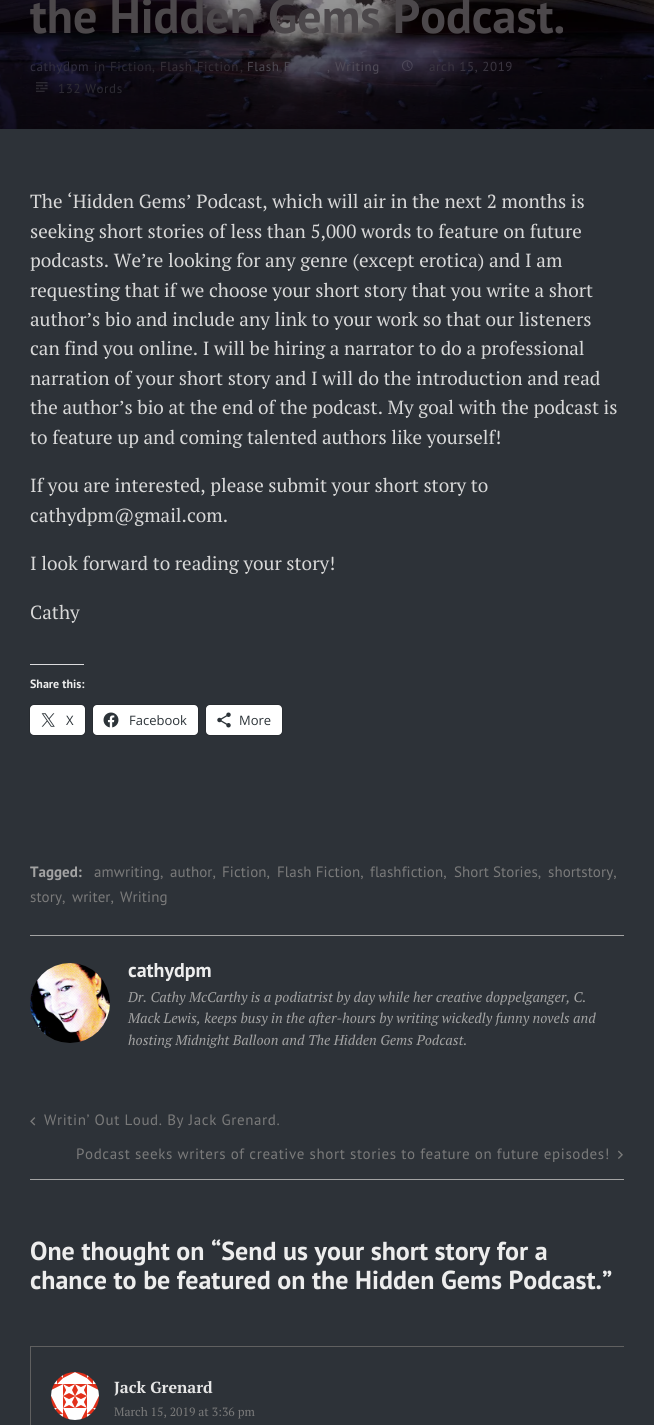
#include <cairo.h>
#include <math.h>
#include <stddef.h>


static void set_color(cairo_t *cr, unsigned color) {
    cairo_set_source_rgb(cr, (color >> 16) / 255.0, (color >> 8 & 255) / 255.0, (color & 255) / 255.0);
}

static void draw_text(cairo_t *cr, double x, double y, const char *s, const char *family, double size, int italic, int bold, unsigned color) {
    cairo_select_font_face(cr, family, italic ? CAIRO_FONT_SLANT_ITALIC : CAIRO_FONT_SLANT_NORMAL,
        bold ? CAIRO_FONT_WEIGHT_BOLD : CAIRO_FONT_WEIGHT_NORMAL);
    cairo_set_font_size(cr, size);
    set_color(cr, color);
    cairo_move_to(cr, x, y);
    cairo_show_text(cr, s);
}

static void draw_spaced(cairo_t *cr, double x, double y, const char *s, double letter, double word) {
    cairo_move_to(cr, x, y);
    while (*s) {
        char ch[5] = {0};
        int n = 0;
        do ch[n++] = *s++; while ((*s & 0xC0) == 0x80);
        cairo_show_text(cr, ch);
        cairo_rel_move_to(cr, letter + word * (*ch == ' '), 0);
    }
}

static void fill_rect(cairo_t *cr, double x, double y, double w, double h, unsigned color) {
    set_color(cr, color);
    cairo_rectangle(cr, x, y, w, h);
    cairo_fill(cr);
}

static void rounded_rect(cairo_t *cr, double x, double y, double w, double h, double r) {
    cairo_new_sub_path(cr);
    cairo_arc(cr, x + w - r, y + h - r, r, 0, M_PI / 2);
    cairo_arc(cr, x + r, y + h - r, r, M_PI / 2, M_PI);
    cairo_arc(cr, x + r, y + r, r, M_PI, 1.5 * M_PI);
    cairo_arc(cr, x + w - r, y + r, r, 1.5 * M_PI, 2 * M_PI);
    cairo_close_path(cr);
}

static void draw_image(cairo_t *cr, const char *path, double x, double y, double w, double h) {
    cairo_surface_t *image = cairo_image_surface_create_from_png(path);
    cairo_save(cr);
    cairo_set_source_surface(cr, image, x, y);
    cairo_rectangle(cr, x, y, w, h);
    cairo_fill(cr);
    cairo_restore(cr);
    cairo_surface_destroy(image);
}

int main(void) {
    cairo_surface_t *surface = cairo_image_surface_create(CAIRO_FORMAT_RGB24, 654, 1425);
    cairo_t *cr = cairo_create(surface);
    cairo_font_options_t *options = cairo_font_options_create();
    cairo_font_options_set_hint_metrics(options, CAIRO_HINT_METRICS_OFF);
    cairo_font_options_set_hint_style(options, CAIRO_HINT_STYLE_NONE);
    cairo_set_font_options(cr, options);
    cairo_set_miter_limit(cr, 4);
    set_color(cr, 0x2D3238);
    cairo_paint(cr);
    draw_image(cr, "assets/img1.png", 0, 0, 654, 129);
    draw_text(cr, 30, 33, "the Hidden Gems Podcast.", "PT Sans", 48, 0, 1, 0x4C484B);
    cairo_select_font_face(cr, "PT Sans", CAIRO_FONT_SLANT_NORMAL, CAIRO_FONT_WEIGHT_NORMAL);
    cairo_set_font_size(cr, 13);
    set_color(cr, 0x322F3F);
    draw_spaced(cr, 30, 71, "cathydpm", 0.6, 0);
    set_color(cr, 0x2D2B33);
    draw_spaced(cr, 94, 71, "in", 0.6, 0);
    draw_spaced(cr, 110, 71, "Fiction", 0.6, 0);
    draw_spaced(cr, 152, 71, ",", 0.6, 0);
    set_color(cr, 0x363038);
    draw_spaced(cr, 160, 71, "Flash Fiction", 0.6, 0);
    set_color(cr, 0x342C31);
    draw_spaced(cr, 240, 71, ",", 0.6, 0);
    set_color(cr, 0x4D4951);
    draw_spaced(cr, 247, 71, "Flash F", 0.6, 0);
    set_color(cr, 0x514C58);
    draw_spaced(cr, 327, 71, ",", 0.6, 0);
    draw_spaced(cr, 335, 71, "Writing", 0.6, 0);
    draw_image(cr, "assets/img2.png", 402, 60, 11, 11);
    set_color(cr, 0x3A3540);
    draw_spaced(cr, 429, 71, "arch 15, 2019", 0.6, 0);
    draw_image(cr, "assets/img3.png", 36, 82, 12, 10);
    set_color(cr, 0x2D2B33);
    draw_spaced(cr, 58, 93, "132 Words", 0.6, 0);
    draw_text(cr, 30, 208, "The ‘Hidden Gems’ Podcast, which will air in the next 2 months is", "PT Serif", 19, 0, 0, 0xD8D8D8);
    draw_text(cr, 30, 238, "seeking short stories of less than 5,000 words to feature on future", "PT Serif", 19, 0, 0, 0xD8D8D8);
    draw_text(cr, 30, 267, "podcasts. We’re looking for any genre (except erotica) and I am", "PT Serif", 19, 0, 0, 0xD8D8D8);
    draw_text(cr, 30, 297, "requesting that if we choose your short story that you write a short", "PT Serif", 19, 0, 0, 0xD8D8D8);
    draw_text(cr, 30, 326, "author’s bio and include any link to your work so that our listeners", "PT Serif", 19, 0, 0, 0xD8D8D8);
    draw_text(cr, 30, 355, "can find you online. I will be hiring a narrator to do a professional", "PT Serif", 19, 0, 0, 0xD8D8D8);
    draw_text(cr, 30, 385, "narration of your short story and I will do the introduction and read", "PT Serif", 19, 0, 0, 0xD8D8D8);
    draw_text(cr, 30, 414, "the author’s bio at the end of the podcast. My goal with the podcast is", "PT Serif", 19, 0, 0, 0xD8D8D8);
    draw_text(cr, 30, 444, "to feature up and coming talented authors like yourself!", "PT Serif", 19, 0, 0, 0xD8D8D8);
    draw_text(cr, 30, 492, "If you are interested, please submit your short story to", "PT Serif", 19, 0, 0, 0xD8D8D8);
    draw_text(cr, 30, 522, "cathydpm@gmail.com.", "PT Serif", 19, 0, 0, 0xD8D8D8);
    draw_text(cr, 30, 570, "I look forward to reading your story!", "PT Serif", 19, 0, 0, 0xD8D8D8);
    draw_text(cr, 30, 619, "Cathy", "PT Serif", 19, 0, 0, 0xD8D8D8);
    fill_rect(cr, 30, 664, 54, 1, 0xDCDCDE);
    draw_text(cr, 30, 688, "Share this:", "PT Sans", 12, 0, 1, 0xEDEDED);
    rounded_rect(cr, 29.5, 704.5, 56, 31, 4.5);
    set_color(cr, 0x282C31);
    cairo_set_line_width(cr, 1);
    cairo_stroke(cr);
    set_color(cr, 0xFFFFFF);
    rounded_rect(cr, 30, 705, 55, 30, 4);
    cairo_fill(cr);
    draw_image(cr, "assets/img4.png", 41, 713, 14, 14);
    draw_text(cr, 66, 725, "X", "Open Sans", 13, 0, 0, 0x2C3338);
    rounded_rect(cr, 92.5, 704.5, 106, 31, 4.5);
    set_color(cr, 0x282C31);
    cairo_stroke(cr);
    set_color(cr, 0xFFFFFF);
    rounded_rect(cr, 93, 705, 105, 30, 4);
    cairo_fill(cr);
    draw_image(cr, "assets/img5.png", 103, 712, 16, 16);
    draw_text(cr, 129, 725, "Facebook", "Open Sans", 13, 0, 0, 0x2C3338);
    rounded_rect(cr, 205.5, 704.5, 77, 31, 4.5);
    set_color(cr, 0x282C31);
    cairo_stroke(cr);
    set_color(cr, 0xFFFFFF);
    rounded_rect(cr, 206, 705, 76, 30, 4);
    cairo_fill(cr);
    draw_image(cr, "assets/img6.png", 217, 712, 14, 16);
    draw_text(cr, 239, 725, "More", "Open Sans", 13, 0, 0, 0x2C3338);
    draw_text(cr, 30, 877, "Tagged:", "PT Sans", 15, 0, 1, 0xA3A3A3);
    cairo_select_font_face(cr, "PT Sans", CAIRO_FONT_SLANT_NORMAL, CAIRO_FONT_WEIGHT_NORMAL);
    set_color(cr, 0x7A7A7A);
    draw_spaced(cr, 94, 877, "amwriting,", 0.1, 0);
    draw_spaced(cr, 170, 877, "author,", 0.1, 0);
    draw_spaced(cr, 222, 877, "Fiction,", 0.1, 0);
    draw_spaced(cr, 277, 877, "Flash Fiction,", 0.1, 0);
    draw_spaced(cr, 370, 877, "flashfiction,", 0.1, 0);
    draw_spaced(cr, 454, 877, "Short Stories,", 0.1, 0);
    draw_spaced(cr, 548, 877, "shortstory,", 0.1, 0);
    draw_spaced(cr, 30, 902, "story,", 0.1, 0);
    draw_spaced(cr, 72, 902, "writer,", 0.1, 0);
    draw_spaced(cr, 120, 902, "Writing", 0.1, 0);
    fill_rect(cr, 30, 935, 594, 1, 0xA3A3A3);
    draw_image(cr, "assets/img7.png", 30, 963, 80, 80);
    draw_text(cr, 128, 977, "cathydpm", "PT Sans", 20, 0, 1, 0xEDEDED);
    draw_text(cr, 128, 1002, "Dr. Cathy McCarthy is a podiatrist by day while her creative doppelganger, C.", "PT Serif", 14, 1, 0, 0xA3A3A3);
    draw_text(cr, 128, 1023, "Mack Lewis, keeps busy in the after-hours by writing wickedly funny novels and", "PT Serif", 14, 1, 0, 0xA3A3A3);
    draw_text(cr, 128, 1045, "hosting Midnight Balloon and The Hidden Gems Podcast.", "PT Serif", 14, 1, 0, 0xA3A3A3);
    fill_rect(cr, 30, 1179, 594, 1, 0xA3A3A3);
    draw_image(cr, "assets/img8.png", 30, 1117, 6, 9);
    cairo_select_font_face(cr, "PT Sans", CAIRO_FONT_SLANT_NORMAL, CAIRO_FONT_WEIGHT_NORMAL);
    cairo_set_font_size(cr, 15);
    set_color(cr, 0x7A7A7A);
    draw_spaced(cr, 44, 1125, "Writin’ Out Loud. By Jack Grenard.", 0.6, 0);
    draw_spaced(cr, 76, 1159, "Podcast seeks writers of creative short stories to feature on future episodes!", 0.6, 0);
    draw_image(cr, "assets/img9.png", 618, 1150, 5, 9);
    draw_text(cr, 30, 1260, "One thought on “Send us your short story for a", "PT Sans", 26, 0, 1, 0xEDEDED);
    draw_text(cr, 30, 1289, "chance to be featured on the Hidden Gems Podcast.”", "PT Sans", 26, 0, 1, 0xEDEDED);
    fill_rect(cr, 30, 1346, 594, 1, 0x606060);
    fill_rect(cr, 30, 1346, 1, 79, 0x606060);
    draw_image(cr, "assets/img10.png", 51, 1372, 48, 48);
    draw_text(cr, 114, 1393, "Jack Grenard", "PT Serif", 16, 0, 1, 0xE5E5E5);
    draw_text(cr, 114, 1416, "March 15, 2019 at 3:36 pm", "PT Serif", 12, 0, 0, 0x7A7A7A);
    cairo_surface_write_to_png(surface, "output.png");
    cairo_font_options_destroy(options);
    cairo_destroy(cr);
    cairo_surface_destroy(surface);
    return 0;
}
